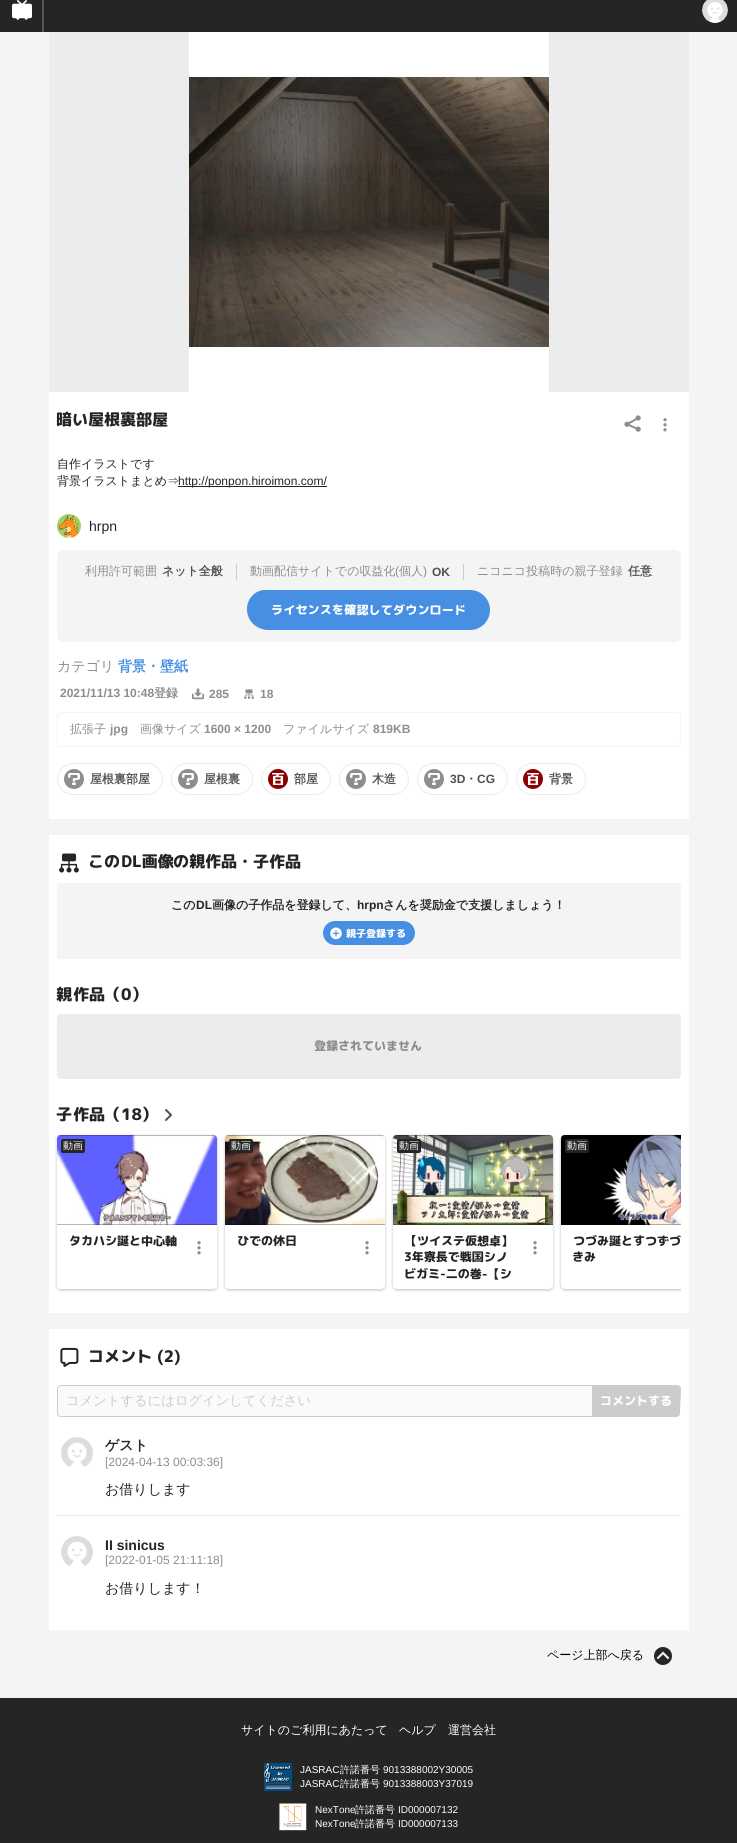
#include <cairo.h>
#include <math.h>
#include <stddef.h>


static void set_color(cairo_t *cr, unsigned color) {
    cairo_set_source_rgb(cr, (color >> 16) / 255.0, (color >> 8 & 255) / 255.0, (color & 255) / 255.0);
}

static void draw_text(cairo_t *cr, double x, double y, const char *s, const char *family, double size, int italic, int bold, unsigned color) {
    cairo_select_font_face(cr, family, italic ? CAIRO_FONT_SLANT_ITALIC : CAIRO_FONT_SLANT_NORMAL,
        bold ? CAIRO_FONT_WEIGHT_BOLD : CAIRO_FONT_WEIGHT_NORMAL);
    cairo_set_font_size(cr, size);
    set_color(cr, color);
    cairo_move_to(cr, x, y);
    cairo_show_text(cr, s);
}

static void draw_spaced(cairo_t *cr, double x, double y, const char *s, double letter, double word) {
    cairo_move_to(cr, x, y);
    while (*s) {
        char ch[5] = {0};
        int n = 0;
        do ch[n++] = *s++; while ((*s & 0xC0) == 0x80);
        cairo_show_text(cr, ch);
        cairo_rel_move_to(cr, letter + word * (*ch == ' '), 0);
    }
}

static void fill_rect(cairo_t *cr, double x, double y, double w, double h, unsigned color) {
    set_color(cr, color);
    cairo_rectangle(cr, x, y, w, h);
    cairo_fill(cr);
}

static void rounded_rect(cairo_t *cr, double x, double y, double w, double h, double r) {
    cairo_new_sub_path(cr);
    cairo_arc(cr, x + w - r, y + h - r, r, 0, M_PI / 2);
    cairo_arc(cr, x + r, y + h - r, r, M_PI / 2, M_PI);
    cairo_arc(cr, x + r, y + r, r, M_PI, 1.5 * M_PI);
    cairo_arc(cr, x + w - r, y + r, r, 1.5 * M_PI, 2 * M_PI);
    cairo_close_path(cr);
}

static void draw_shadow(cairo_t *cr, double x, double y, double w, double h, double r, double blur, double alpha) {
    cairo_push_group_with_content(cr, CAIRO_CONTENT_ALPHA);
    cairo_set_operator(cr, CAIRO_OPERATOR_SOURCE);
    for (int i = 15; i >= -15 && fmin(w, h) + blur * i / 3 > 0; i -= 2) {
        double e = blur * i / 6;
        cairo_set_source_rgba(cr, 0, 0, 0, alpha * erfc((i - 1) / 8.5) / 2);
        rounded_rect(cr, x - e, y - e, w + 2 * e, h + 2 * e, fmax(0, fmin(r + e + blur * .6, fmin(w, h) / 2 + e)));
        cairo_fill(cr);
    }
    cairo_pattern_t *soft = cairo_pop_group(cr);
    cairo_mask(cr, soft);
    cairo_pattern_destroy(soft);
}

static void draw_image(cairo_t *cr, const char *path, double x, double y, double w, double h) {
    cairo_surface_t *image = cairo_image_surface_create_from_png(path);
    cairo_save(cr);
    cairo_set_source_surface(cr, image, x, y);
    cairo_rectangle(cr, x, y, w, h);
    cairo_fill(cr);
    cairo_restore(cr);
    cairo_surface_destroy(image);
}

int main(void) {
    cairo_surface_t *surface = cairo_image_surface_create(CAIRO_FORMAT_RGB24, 737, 1843);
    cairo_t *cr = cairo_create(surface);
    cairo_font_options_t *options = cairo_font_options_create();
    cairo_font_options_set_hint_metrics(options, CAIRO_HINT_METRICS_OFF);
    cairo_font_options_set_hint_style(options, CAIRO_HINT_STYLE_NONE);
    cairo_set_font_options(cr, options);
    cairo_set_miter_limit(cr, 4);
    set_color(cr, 0xF4F4F4);
    cairo_paint(cr);
    fill_rect(cr, 0, 0, 737, 32, 0x252525);
    draw_image(cr, "assets/img1.png", 12, 0, 20, 20);
    fill_rect(cr, 42, 0, 2, 32, 0x555555);
    draw_image(cr, "assets/img2.png", 702, 0, 26, 23);
    fill_rect(cr, 49, 392, 640, 427, 0xFFFFFF);
    fill_rect(cr, 49, 32, 640, 360, 0xECECEC);
    draw_image(cr, "assets/img3.png", 189, 32, 360, 360);
    cairo_save(cr);
    cairo_translate(cr, 56, 425);
    cairo_rotate(cr, 0.1 * M_PI / 180);
    draw_text(cr, 0, 0, "暗い屋根裏部屋", "Rounded Mplus 1c ExtraBold", 16, 0, 0, 0x252525);
    cairo_restore(cr);
    draw_image(cr, "assets/img4.png", 624, 415, 17, 17);
    draw_image(cr, "assets/img5.png", 663, 418, 4, 14);
    draw_text(cr, 57, 468, "自作イラストです", "WenQuanYi Zen Hei Medium", 12, 0, 0, 0x252525);
    draw_text(cr, 57, 485, "背景イラストまとめ⇒", "WenQuanYi Zen Hei Medium", 12, 0, 0, 0x252525);
    fill_rect(cr, 178, 486, 149, 1, 0x252525);
    draw_text(cr, 178, 485, "http://ponpon.hiroimon.com/", "Liberation Sans", 12, 0, 0, 0x252525);
    draw_image(cr, "assets/img6.png", 57, 514, 24, 24);
    draw_text(cr, 89, 531, "hrpn", "Liberation Sans", 14, 0, 0, 0x252525);
    set_color(cr, 0xF4F4F4);
    rounded_rect(cr, 57, 550, 624, 92, 6);
    cairo_fill(cr);
    fill_rect(cr, 236, 564, 1, 16, 0xCCCCCC);
    draw_text(cr, 85, 575, "利用許可範囲", "WenQuanYi Zen Hei Medium", 12, 0, 0, 0x8D8D8D);
    draw_text(cr, 162, 575, "ネット全般", "WenQuanYi Zen Hei", 12, 0, 1, 0x525252);
    fill_rect(cr, 463, 564, 1, 16, 0xCCCCCC);
    draw_text(cr, 250, 575, "動画配信サイトでの収益化", "WenQuanYi Zen Hei Medium", 12, 0, 0, 0x8D8D8D);
    draw_text(cr, 395, 575, "(", "Liberation Sans", 12, 0, 0, 0x8D8D8D);
    draw_text(cr, 399, 575, "個人", "WenQuanYi Zen Hei Medium", 12, 0, 0, 0x8D8D8D);
    draw_text(cr, 423, 575, ")", "Liberation Sans", 12, 0, 0, 0x8D8D8D);
    draw_text(cr, 432, 576, "OK", "Liberation Sans", 12, 0, 1, 0x525252);
    draw_text(cr, 477, 575, "ニコニコ投稿時の親子登録", "WenQuanYi Zen Hei Medium", 12, 0, 0, 0x8D8D8D);
    draw_text(cr, 628, 575, "任意", "WenQuanYi Zen Hei", 12, 0, 1, 0x525252);
    set_color(cr, 0x468FE2);
    cairo_new_path(cr);
    cairo_move_to(cr, 267, 590);
    cairo_line_to(cr, 470, 590);
    cairo_curve_to(cr, 481, 590, 490, 599, 490, 610);
    cairo_curve_to(cr, 490, 621, 481, 630, 470, 630);
    cairo_line_to(cr, 267, 630);
    cairo_curve_to(cr, 256, 629, 247, 621, 247, 609);
    cairo_curve_to(cr, 247, 598, 256, 589, 267, 590);
    cairo_close_path(cr);
    cairo_fill(cr);
    cairo_select_font_face(cr, "Rounded Mplus 1c ExtraBold", CAIRO_FONT_SLANT_NORMAL, CAIRO_FONT_WEIGHT_NORMAL);
    set_color(cr, 0xFFFFFF);
    cairo_save(cr);
    cairo_translate(cr, 271, 614);
    cairo_rotate(cr, 0.1 * M_PI / 180);
    draw_spaced(cr, 0, 0, "ライセンスを確認してダウンロード", 0.2, 0);
    cairo_restore(cr);
    draw_text(cr, 57, 671, "カテゴリ", "WenQuanYi Zen Hei Medium", 14, 0, 0, 0x8D8D8D);
    draw_text(cr, 118, 671, "背景・壁紙", "WenQuanYi Zen Hei", 14, 0, 1, 0x468FE2);
    draw_text(cr, 60, 697, "2021/11/13 10:48", "Liberation Sans", 12, 0, 1, 0x8D8D8D);
    draw_text(cr, 154, 697, "登録", "WenQuanYi Zen Hei", 12, 0, 1, 0x8D8D8D);
    draw_image(cr, "assets/img7.png", 192, 688, 12, 12);
    draw_text(cr, 209, 698, "285", "Liberation Sans", 12, 0, 1, 0x8D8D8D);
    draw_image(cr, "assets/img8.png", 244, 689, 10, 10);
    draw_text(cr, 260, 698, "18", "Liberation Sans", 12, 0, 1, 0x8D8D8D);
    rounded_rect(cr, 57.5, 712.5, 623, 34, 3.5);
    set_color(cr, 0xF4F4F4);
    cairo_set_line_width(cr, 1);
    cairo_stroke(cr);
    draw_text(cr, 70, 733, "拡張子", "WenQuanYi Zen Hei Medium", 12, 0, 0, 0x8D8D8D);
    draw_text(cr, 110, 733, "jpg", "Liberation Sans", 12, 0, 1, 0x8D8D8D);
    draw_text(cr, 140, 733, "画像サイズ", "WenQuanYi Zen Hei Medium", 12, 0, 0, 0x8D8D8D);
    draw_text(cr, 204, 733, "1600 × 1200", "Liberation Sans", 12, 0, 1, 0x8D8D8D);
    draw_text(cr, 283, 733, "ファイルサイズ", "WenQuanYi Zen Hei Medium", 12, 0, 0, 0x8D8D8D);
    draw_text(cr, 373, 733, "819KB", "Liberation Sans", 12, 0, 1, 0x8D8D8D);
    rounded_rect(cr, 57.5, 763.5, 105, 31, 15.5);
    set_color(cr, 0xECECEC);
    cairo_stroke(cr);
    set_color(cr, 0x8D8D8D);
    cairo_arc(cr, 74, 779, 10, 0, 2 * M_PI);
    cairo_fill(cr);
    draw_image(cr, "assets/img9.png", 68, 773, 12, 12);
    draw_text(cr, 90, 783, "屋根裏部屋", "WenQuanYi Zen Hei", 12, 0, 1, 0x525252);
    rounded_rect(cr, 171.5, 763.5, 81, 31, 15.5);
    set_color(cr, 0xECECEC);
    cairo_stroke(cr);
    set_color(cr, 0x8D8D8D);
    cairo_arc(cr, 188, 779, 10, 0, 2 * M_PI);
    cairo_fill(cr);
    draw_image(cr, "assets/img9.png", 182, 773, 12, 12);
    draw_text(cr, 204, 783, "屋根裏", "WenQuanYi Zen Hei", 12, 0, 1, 0x525252);
    rounded_rect(cr, 261.5, 763.5, 69, 31, 15.5);
    set_color(cr, 0xECECEC);
    cairo_stroke(cr);
    set_color(cr, 0x8C0000);
    cairo_arc(cr, 278, 779, 10, 0, 2 * M_PI);
    cairo_fill(cr);
    draw_image(cr, "assets/img10.png", 272, 773, 12, 12);
    draw_text(cr, 294, 783, "部屋", "WenQuanYi Zen Hei", 12, 0, 1, 0x525252);
    rounded_rect(cr, 339.5, 763.5, 69, 31, 15.5);
    set_color(cr, 0xECECEC);
    cairo_stroke(cr);
    set_color(cr, 0x8D8D8D);
    cairo_arc(cr, 356, 779, 10, 0, 2 * M_PI);
    cairo_fill(cr);
    draw_image(cr, "assets/img9.png", 350, 773, 12, 12);
    draw_text(cr, 372, 783, "木造", "WenQuanYi Zen Hei", 12, 0, 1, 0x525252);
    rounded_rect(cr, 417.5, 763.5, 90, 31, 15.5);
    set_color(cr, 0xECECEC);
    cairo_stroke(cr);
    set_color(cr, 0x8D8D8D);
    cairo_arc(cr, 434, 779, 10, 0, 2 * M_PI);
    cairo_fill(cr);
    draw_image(cr, "assets/img9.png", 428, 773, 12, 12);
    draw_text(cr, 450, 783, "3D", "Liberation Sans", 12, 0, 1, 0x525252);
    draw_text(cr, 465, 783, "・", "WenQuanYi Zen Hei", 12, 0, 1, 0x525252);
    draw_text(cr, 477, 783, "CG", "Liberation Sans", 12, 0, 1, 0x525252);
    rounded_rect(cr, 516.5, 763.5, 69, 31, 15.5);
    set_color(cr, 0xECECEC);
    cairo_stroke(cr);
    set_color(cr, 0x8C0000);
    cairo_arc(cr, 533, 779, 10, 0, 2 * M_PI);
    cairo_fill(cr);
    draw_image(cr, "assets/img10.png", 527, 773, 12, 12);
    draw_text(cr, 549, 783, "背景", "WenQuanYi Zen Hei", 12, 0, 1, 0x525252);
    fill_rect(cr, 49, 835, 640, 478, 0xFFFFFF);
    draw_image(cr, "assets/img11.png", 59, 853, 20, 20);
    cairo_save(cr);
    cairo_translate(cr, 88, 867);
    cairo_rotate(cr, 0.1 * M_PI / 180);
    draw_text(cr, 0, 0, "この", "Rounded Mplus 1c ExtraBold", 16, 0, 0, 0x252525);
    cairo_restore(cr);
    cairo_save(cr);
    cairo_translate(cr, 121, 867);
    cairo_rotate(cr, 0.1 * M_PI / 180);
    draw_text(cr, 0, 0, "DL画像", "Rounded Mplus 1c ExtraBold", 16, 0, 0, 0x252525);
    cairo_restore(cr);
    cairo_save(cr);
    cairo_translate(cr, 173, 867);
    cairo_rotate(cr, 0.1 * M_PI / 180);
    draw_text(cr, 0, 0, "の親作品・子作品", "Rounded Mplus 1c ExtraBold", 16, 0, 0, 0x252525);
    cairo_restore(cr);
    set_color(cr, 0xF4F4F4);
    rounded_rect(cr, 57, 883, 624, 76, 2);
    cairo_fill(cr);
    draw_text(cr, 171, 909, "この", "WenQuanYi Zen Hei", 12, 0, 1, 0x252525);
    draw_text(cr, 196, 909, "DL", "Liberation Sans", 12, 0, 1, 0x252525);
    draw_text(cr, 212, 909, "画像の子作品を登録して、", "WenQuanYi Zen Hei", 12, 0, 1, 0x252525);
    draw_text(cr, 357, 909, "hrpn", "Liberation Sans", 12, 0, 1, 0x252525);
    draw_text(cr, 383, 909, "さんを奨励金で支援しましょう！", "WenQuanYi Zen Hei", 12, 0, 1, 0x252525);
    set_color(cr, 0x468FE2);
    rounded_rect(cr, 323, 921, 92, 24, 12);
    cairo_fill(cr);
    draw_image(cr, "assets/img12.png", 330, 927, 12, 13);
    cairo_save(cr);
    cairo_translate(cr, 346, 937);
    cairo_rotate(cr, 0.1 * M_PI / 180);
    draw_text(cr, 0, 0, "親子登録する", "Rounded Mplus 1c ExtraBold", 10, 0, 0, 0xFFFFFF);
    cairo_restore(cr);
    cairo_save(cr);
    cairo_translate(cr, 56, 1000);
    cairo_rotate(cr, 0.1 * M_PI / 180);
    draw_text(cr, 0, 0, "親", "Rounded Mplus 1c ExtraBold", 16, 0, 0, 0x252525);
    cairo_restore(cr);
    cairo_save(cr);
    cairo_translate(cr, 73, 1000);
    cairo_rotate(cr, 0.1 * M_PI / 180);
    draw_text(cr, 0, 0, "作品（", "Rounded Mplus 1c ExtraBold", 16, 0, 0, 0x252525);
    cairo_restore(cr);
    cairo_save(cr);
    cairo_translate(cr, 121, 1000);
    cairo_rotate(cr, 0.1 * M_PI / 180);
    draw_text(cr, 0, 0, "0", "Rounded Mplus 1c ExtraBold", 16, 0, 0, 0x252525);
    cairo_restore(cr);
    cairo_save(cr);
    cairo_translate(cr, 131, 1000);
    cairo_rotate(cr, 0.1 * M_PI / 180);
    draw_text(cr, 0, 0, "）", "Rounded Mplus 1c ExtraBold", 16, 0, 0, 0x252525);
    cairo_restore(cr);
    set_color(cr, 0xECECEC);
    rounded_rect(cr, 57, 1014, 624, 65, 4);
    cairo_fill(cr);
    cairo_save(cr);
    cairo_translate(cr, 314, 1050);
    cairo_rotate(cr, 0.1 * M_PI / 180);
    draw_text(cr, 0, 0, "登録されていません", "Rounded Mplus 1c ExtraBold", 12, 0, 0, 0x8D8D8D);
    cairo_restore(cr);
    cairo_save(cr);
    cairo_translate(cr, 56, 1120);
    cairo_rotate(cr, 0.1 * M_PI / 180);
    draw_text(cr, 0, 0, "子", "Rounded Mplus 1c ExtraBold", 16, 0, 0, 0x252525);
    cairo_restore(cr);
    cairo_save(cr);
    cairo_translate(cr, 73, 1120);
    cairo_rotate(cr, 0.1 * M_PI / 180);
    draw_text(cr, 0, 0, "作品（", "Rounded Mplus 1c ExtraBold", 16, 0, 0, 0x252525);
    cairo_restore(cr);
    cairo_save(cr);
    cairo_translate(cr, 121, 1120);
    cairo_rotate(cr, 0.1 * M_PI / 180);
    draw_text(cr, 0, 0, "18", "Rounded Mplus 1c ExtraBold", 16, 0, 0, 0x252525);
    cairo_restore(cr);
    cairo_save(cr);
    cairo_translate(cr, 141, 1120);
    cairo_rotate(cr, 0.1 * M_PI / 180);
    draw_text(cr, 0, 0, "）", "Rounded Mplus 1c ExtraBold", 16, 0, 0, 0x252525);
    cairo_restore(cr);
    draw_image(cr, "assets/img13.png", 165, 1109, 7, 12);
    cairo_save(cr);
    cairo_set_fill_rule(cr, CAIRO_FILL_RULE_EVEN_ODD);
    cairo_new_path(cr);
    cairo_move_to(cr, 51, 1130);
    cairo_line_to(cr, 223, 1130);
    cairo_line_to(cr, 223, 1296);
    cairo_line_to(cr, 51, 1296);
    cairo_close_path(cr);
    cairo_move_to(cr, 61, 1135);
    cairo_line_to(cr, 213, 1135);
    cairo_curve_to(cr, 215, 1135, 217, 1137, 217, 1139);
    cairo_line_to(cr, 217, 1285);
    cairo_curve_to(cr, 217, 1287, 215, 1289, 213, 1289);
    cairo_line_to(cr, 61, 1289);
    cairo_curve_to(cr, 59, 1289, 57, 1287, 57, 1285);
    cairo_line_to(cr, 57, 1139);
    cairo_curve_to(cr, 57, 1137, 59, 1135, 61, 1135);
    cairo_close_path(cr);
    cairo_clip(cr);
    set_color(cr, 0x000000);
    draw_shadow(cr, 57, 1136, 160, 154, 4, 1.5, 0.25);
    cairo_restore(cr);
    set_color(cr, 0xFFFFFF);
    rounded_rect(cr, 57, 1135, 160, 154, 4);
    cairo_fill(cr);
    draw_image(cr, "assets/img14.png", 57, 1135, 160, 90);
    set_color(cr, 0x252525);
    rounded_rect(cr, 61, 1139, 24, 14, 2);
    cairo_fill(cr);
    draw_text(cr, 63, 1149, "動画", "WenQuanYi Zen Hei Medium", 10, 0, 0, 0xFFFFFF);
    cairo_save(cr);
    cairo_translate(cr, 69, 1245);
    cairo_rotate(cr, 0.1 * M_PI / 180);
    draw_text(cr, 0, 0, "タカハシ誕と中心軸", "Rounded Mplus 1c ExtraBold", 12, 0, 0, 0x252525);
    cairo_restore(cr);
    draw_image(cr, "assets/img5.png", 197, 1241, 4, 14);
    set_color(cr, 0x000000);
    draw_shadow(cr, 225, 1136, 160, 154, 4, 1.5, 0.25);
    set_color(cr, 0xFFFFFF);
    rounded_rect(cr, 225, 1135, 160, 154, 4);
    cairo_fill(cr);
    draw_image(cr, "assets/img15.png", 225, 1135, 160, 90);
    set_color(cr, 0x252525);
    rounded_rect(cr, 229, 1139, 24, 14, 2);
    cairo_fill(cr);
    draw_text(cr, 231, 1149, "動画", "WenQuanYi Zen Hei Medium", 10, 0, 0, 0xFFFFFF);
    cairo_save(cr);
    cairo_translate(cr, 237, 1245);
    cairo_rotate(cr, 0.1 * M_PI / 180);
    draw_text(cr, 0, 0, "ひでの休日", "Rounded Mplus 1c ExtraBold", 12, 0, 0, 0x252525);
    cairo_restore(cr);
    draw_image(cr, "assets/img5.png", 365, 1241, 4, 14);
    set_color(cr, 0x000000);
    draw_shadow(cr, 393, 1136, 160, 154, 4, 1.5, 0.25);
    set_color(cr, 0xFFFFFF);
    rounded_rect(cr, 393, 1135, 160, 154, 4);
    cairo_fill(cr);
    draw_image(cr, "assets/img16.png", 393, 1135, 160, 90);
    set_color(cr, 0x252525);
    rounded_rect(cr, 397, 1139, 24, 14, 2);
    cairo_fill(cr);
    draw_text(cr, 399, 1149, "動画", "WenQuanYi Zen Hei Medium", 10, 0, 0, 0xFFFFFF);
    cairo_save(cr);
    cairo_translate(cr, 405, 1245);
    cairo_rotate(cr, 0.1 * M_PI / 180);
    draw_text(cr, 0, 0, "【ツイステ仮想卓】", "Rounded Mplus 1c ExtraBold", 12, 0, 0, 0x252525);
    cairo_restore(cr);
    cairo_save(cr);
    cairo_translate(cr, 404, 1261);
    cairo_rotate(cr, 0.1 * M_PI / 180);
    draw_text(cr, 0, 0, "3年寮長で戦国シノ", "Rounded Mplus 1c ExtraBold", 12, 0, 0, 0x252525);
    cairo_restore(cr);
    cairo_save(cr);
    cairo_translate(cr, 404, 1278);
    cairo_rotate(cr, 0.1 * M_PI / 180);
    draw_text(cr, 0, 0, "ビガミ-二の巻-【シ", "Rounded Mplus 1c ExtraBold", 12, 0, 0, 0x252525);
    cairo_restore(cr);
    draw_image(cr, "assets/img5.png", 533, 1241, 4, 14);
    cairo_save(cr);
    cairo_rectangle(cr, 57, 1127, 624, 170);
    cairo_clip(cr);
    set_color(cr, 0x000000);
    draw_shadow(cr, 561, 1136, 160, 154, 4, 1.5, 0.25);
    cairo_restore(cr);
    set_color(cr, 0xFFFFFF);
    cairo_new_path(cr);
    cairo_move_to(cr, 565, 1135);
    cairo_line_to(cr, 681, 1135);
    cairo_line_to(cr, 681, 1289);
    cairo_line_to(cr, 565, 1289);
    cairo_curve_to(cr, 563, 1289, 561, 1287, 561, 1285);
    cairo_line_to(cr, 561, 1139);
    cairo_curve_to(cr, 561, 1137, 563, 1135, 565, 1135);
    cairo_close_path(cr);
    cairo_fill(cr);
    draw_image(cr, "assets/img17.png", 561, 1135, 120, 90);
    set_color(cr, 0x252525);
    rounded_rect(cr, 565, 1139, 24, 14, 2);
    cairo_fill(cr);
    draw_text(cr, 567, 1149, "動画", "WenQuanYi Zen Hei Medium", 10, 0, 0, 0xFFFFFF);
    cairo_save(cr);
    cairo_translate(cr, 573, 1245);
    cairo_rotate(cr, 0.1 * M_PI / 180);
    draw_text(cr, 0, 0, "つづみ誕とすつずづ", "Rounded Mplus 1c ExtraBold", 12, 0, 0, 0x252525);
    cairo_restore(cr);
    cairo_save(cr);
    cairo_translate(cr, 572, 1261);
    cairo_rotate(cr, 0.1 * M_PI / 180);
    draw_text(cr, 0, 0, "きみ", "Rounded Mplus 1c ExtraBold", 12, 0, 0, 0x252525);
    cairo_restore(cr);
    fill_rect(cr, 49, 1329, 640, 301, 0xFFFFFF);
    draw_image(cr, "assets/img18.png", 60, 1347, 19, 20);
    cairo_save(cr);
    cairo_translate(cr, 88, 1362);
    cairo_rotate(cr, 0.1 * M_PI / 180);
    draw_text(cr, 0, 0, "コメント", "Rounded Mplus 1c ExtraBold", 16, 0, 0, 0x252525);
    cairo_restore(cr);
    cairo_save(cr);
    cairo_translate(cr, 157, 1362);
    cairo_rotate(cr, 0.1 * M_PI / 180);
    draw_text(cr, 0, 0, "(2)", "Rounded Mplus 1c ExtraBold", 16, 0, 0, 0x252525);
    cairo_restore(cr);
    set_color(cr, 0xFAFAFA);
    cairo_new_path(cr);
    cairo_move_to(cr, 61, 1385.5);
    cairo_line_to(cr, 592.5, 1385.5);
    cairo_line_to(cr, 592.5, 1416.5);
    cairo_line_to(cr, 61, 1416.5);
    cairo_curve_to(cr, 59, 1416.5, 57.5, 1415, 57.5, 1413);
    cairo_line_to(cr, 57.5, 1389);
    cairo_curve_to(cr, 57.5, 1387, 59, 1385.5, 61, 1385.5);
    cairo_close_path(cr);
    cairo_fill_preserve(cr);
    set_color(cr, 0xCCCCCC);
    cairo_stroke(cr);
    draw_text(cr, 66, 1405, "コメントするにはログインしてください", "WenQuanYi Zen Hei Medium", 13.3, 0, 0, 0xCCCCCC);
    cairo_new_path(cr);
    cairo_move_to(cr, 593, 1385);
    cairo_line_to(cr, 677, 1385);
    cairo_curve_to(cr, 679, 1385, 681, 1386, 681, 1389);
    cairo_line_to(cr, 680, 1413);
    cairo_curve_to(cr, 680, 1415, 679, 1417, 676, 1417);
    cairo_line_to(cr, 592, 1417);
    cairo_close_path(cr);
    cairo_fill(cr);
    cairo_save(cr);
    cairo_translate(cr, 600, 1405);
    cairo_rotate(cr, 0.1 * M_PI / 180);
    draw_text(cr, 0, 0, "コメントする", "Rounded Mplus 1c ExtraBold", 12, 0, 0, 0xFFFFFF);
    cairo_restore(cr);
    fill_rect(cr, 57, 1515, 624, 1, 0xECECEC);
    draw_image(cr, "assets/img19.png", 61, 1437, 32, 30);
    draw_text(cr, 105, 1450, "ゲスト", "WenQuanYi Zen Hei", 14, 0, 1, 0x252525);
    draw_text(cr, 105, 1466, "[2024-04-13 00:03:36]", "Liberation Sans", 12, 0, 0, 0x8D8D8D);
    draw_text(cr, 105, 1494, "お借りします", "WenQuanYi Zen Hei Medium", 14, 0, 0, 0x252525);
    draw_image(cr, "assets/img19.png", 61, 1536, 32, 30);
    draw_text(cr, 105, 1550, "II sinicus", "Liberation Sans", 14, 0, 1, 0x252525);
    draw_text(cr, 105, 1564, "[2022-01-05 21:11:18]", "Liberation Sans", 12, 0, 0, 0x8D8D8D);
    draw_text(cr, 105, 1593, "お借りします！", "WenQuanYi Zen Hei Medium", 14, 0, 0, 0x252525);
    draw_text(cr, 547, 1659, "ページ上部へ戻る", "WenQuanYi Zen Hei Medium", 12, 0, 0, 0x000000);
    draw_image(cr, "assets/img20.png", 654, 1647, 18, 18);
    fill_rect(cr, 0, 1698, 737, 145, 0x252525);
    draw_text(cr, 241, 1734, "サイトのご利用にあたって", "WenQuanYi Zen Hei Medium", 12, 0, 0, 0xFFFFFF);
    draw_text(cr, 399, 1734, "ヘルプ", "WenQuanYi Zen Hei Medium", 12, 0, 0, 0xFFFFFF);
    draw_text(cr, 448, 1734, "運営会社", "WenQuanYi Zen Hei Medium", 12, 0, 0, 0xFFFFFF);
    draw_image(cr, "assets/img21.png", 264, 1763, 28, 28);
    draw_text(cr, 300, 1773, "JASRAC", "Liberation Sans", 10, 0, 0, 0xFFFFFF);
    draw_text(cr, 340, 1773, "許諾番号", "WenQuanYi Zen Hei Medium", 10, 0, 0, 0xFFFFFF);
    draw_text(cr, 383, 1773, "9013388002Y30005", "Liberation Sans", 10, 0, 0, 0xFFFFFF);
    draw_text(cr, 300, 1787, "JASRAC", "Liberation Sans", 10, 0, 0, 0xFFFFFF);
    draw_text(cr, 340, 1787, "許諾番号", "WenQuanYi Zen Hei Medium", 10, 0, 0, 0xFFFFFF);
    draw_text(cr, 383, 1787, "9013388003Y37019", "Liberation Sans", 10, 0, 0, 0xFFFFFF);
    draw_image(cr, "assets/img22.png", 279, 1803, 28, 28);
    draw_text(cr, 315, 1813, "NexTone", "Liberation Sans", 10, 0, 0, 0xFFFFFF);
    draw_text(cr, 355, 1813, "許諾番号", "WenQuanYi Zen Hei Medium", 10, 0, 0, 0xFFFFFF);
    draw_text(cr, 398, 1813, "ID000007132", "Liberation Sans", 10, 0, 0, 0xFFFFFF);
    draw_text(cr, 315, 1827, "NexTone", "Liberation Sans", 10, 0, 0, 0xFFFFFF);
    draw_text(cr, 355, 1827, "許諾番号", "WenQuanYi Zen Hei Medium", 10, 0, 0, 0xFFFFFF);
    draw_text(cr, 398, 1827, "ID000007133", "Liberation Sans", 10, 0, 0, 0xFFFFFF);
    cairo_surface_write_to_png(surface, "output.png");
    cairo_font_options_destroy(options);
    cairo_destroy(cr);
    cairo_surface_destroy(surface);
    return 0;
}
